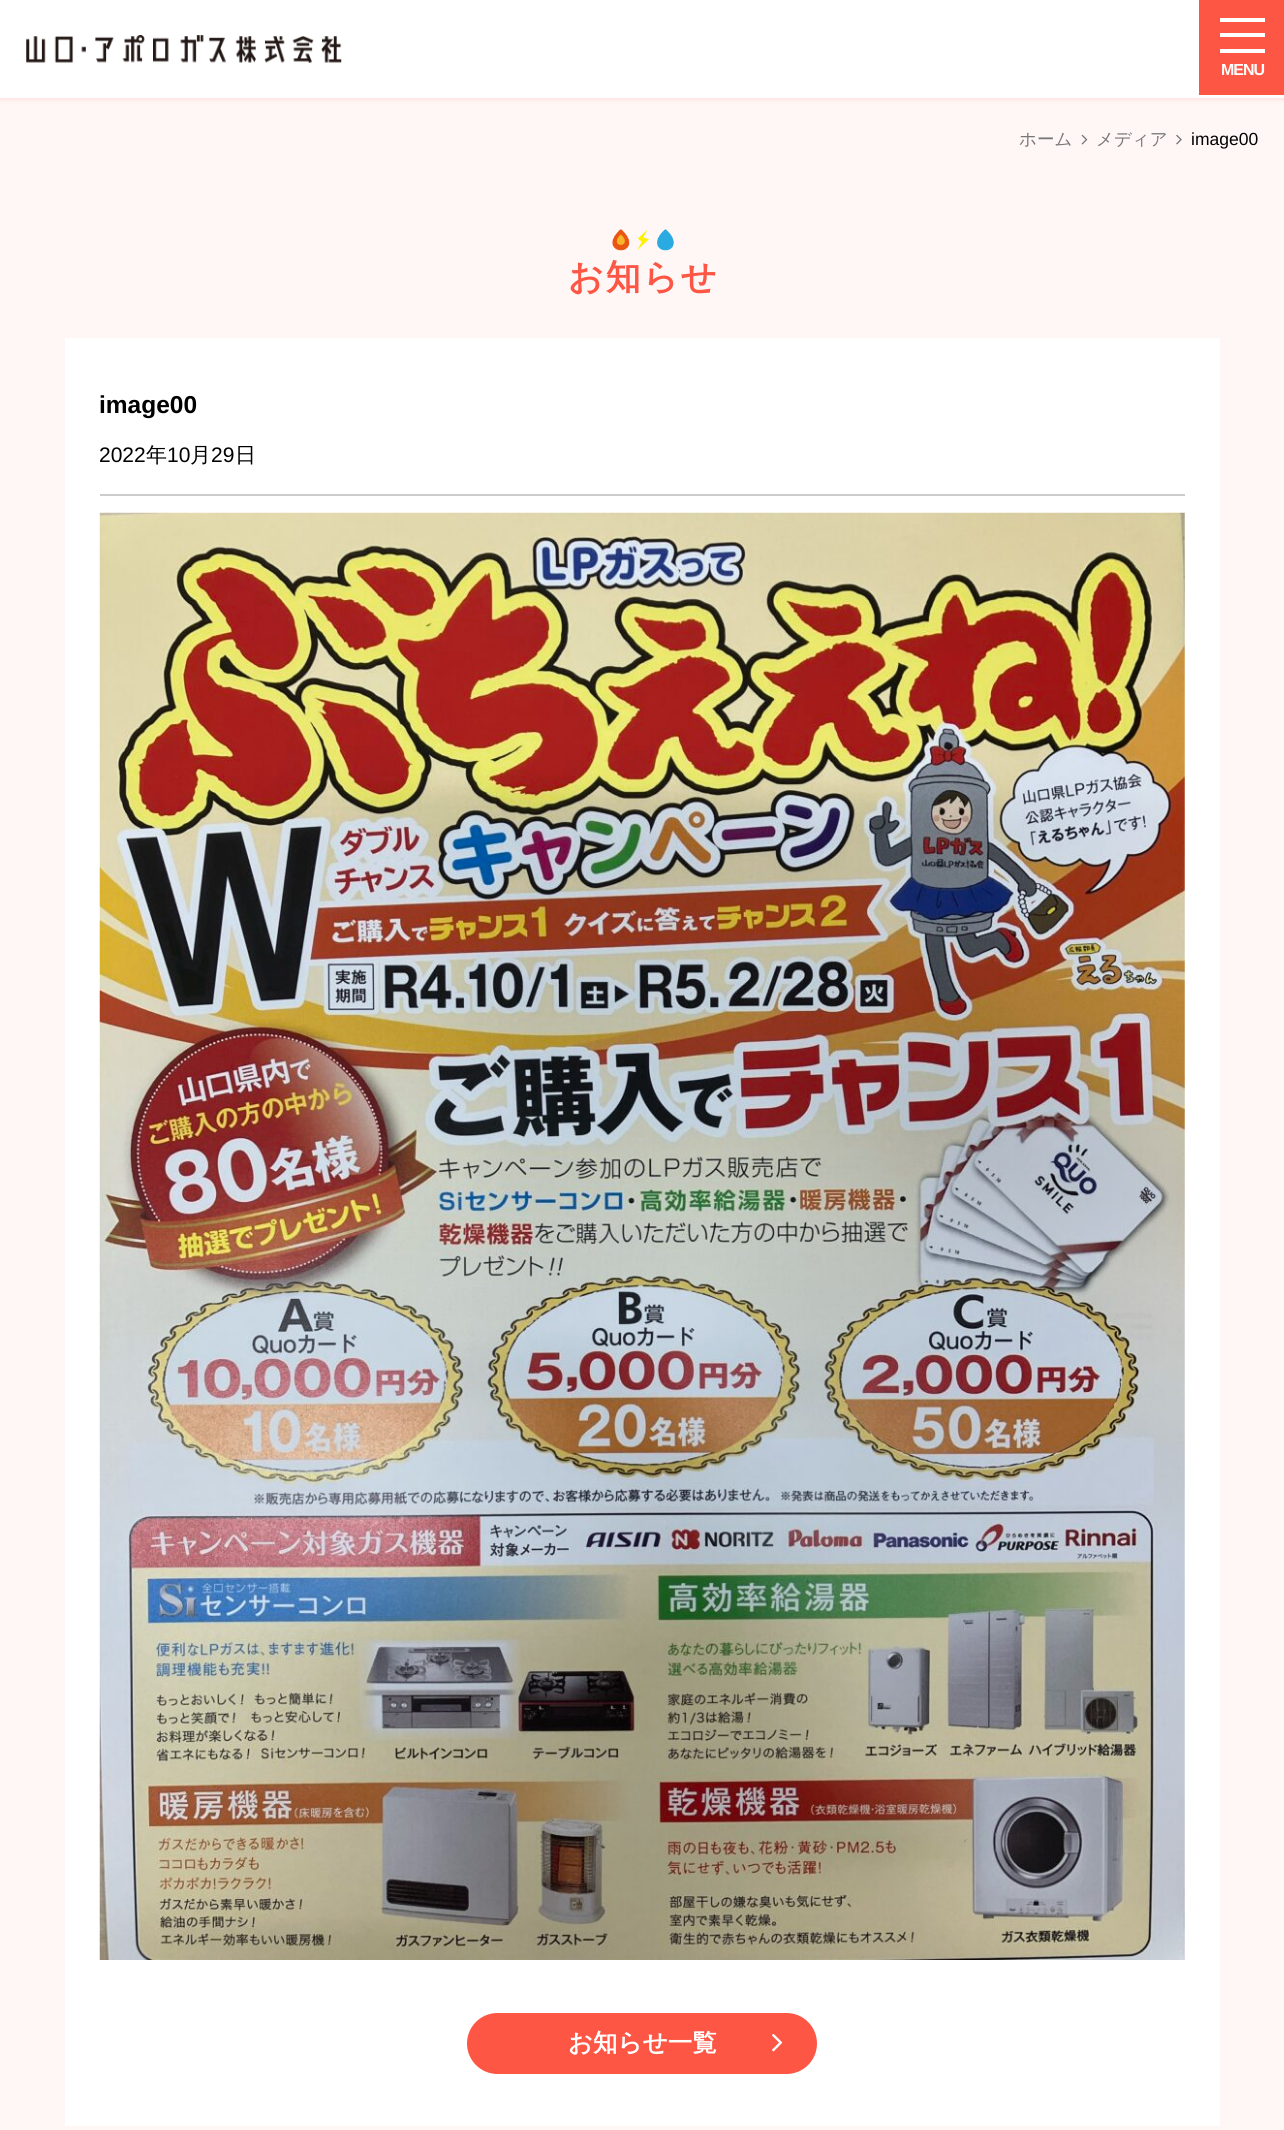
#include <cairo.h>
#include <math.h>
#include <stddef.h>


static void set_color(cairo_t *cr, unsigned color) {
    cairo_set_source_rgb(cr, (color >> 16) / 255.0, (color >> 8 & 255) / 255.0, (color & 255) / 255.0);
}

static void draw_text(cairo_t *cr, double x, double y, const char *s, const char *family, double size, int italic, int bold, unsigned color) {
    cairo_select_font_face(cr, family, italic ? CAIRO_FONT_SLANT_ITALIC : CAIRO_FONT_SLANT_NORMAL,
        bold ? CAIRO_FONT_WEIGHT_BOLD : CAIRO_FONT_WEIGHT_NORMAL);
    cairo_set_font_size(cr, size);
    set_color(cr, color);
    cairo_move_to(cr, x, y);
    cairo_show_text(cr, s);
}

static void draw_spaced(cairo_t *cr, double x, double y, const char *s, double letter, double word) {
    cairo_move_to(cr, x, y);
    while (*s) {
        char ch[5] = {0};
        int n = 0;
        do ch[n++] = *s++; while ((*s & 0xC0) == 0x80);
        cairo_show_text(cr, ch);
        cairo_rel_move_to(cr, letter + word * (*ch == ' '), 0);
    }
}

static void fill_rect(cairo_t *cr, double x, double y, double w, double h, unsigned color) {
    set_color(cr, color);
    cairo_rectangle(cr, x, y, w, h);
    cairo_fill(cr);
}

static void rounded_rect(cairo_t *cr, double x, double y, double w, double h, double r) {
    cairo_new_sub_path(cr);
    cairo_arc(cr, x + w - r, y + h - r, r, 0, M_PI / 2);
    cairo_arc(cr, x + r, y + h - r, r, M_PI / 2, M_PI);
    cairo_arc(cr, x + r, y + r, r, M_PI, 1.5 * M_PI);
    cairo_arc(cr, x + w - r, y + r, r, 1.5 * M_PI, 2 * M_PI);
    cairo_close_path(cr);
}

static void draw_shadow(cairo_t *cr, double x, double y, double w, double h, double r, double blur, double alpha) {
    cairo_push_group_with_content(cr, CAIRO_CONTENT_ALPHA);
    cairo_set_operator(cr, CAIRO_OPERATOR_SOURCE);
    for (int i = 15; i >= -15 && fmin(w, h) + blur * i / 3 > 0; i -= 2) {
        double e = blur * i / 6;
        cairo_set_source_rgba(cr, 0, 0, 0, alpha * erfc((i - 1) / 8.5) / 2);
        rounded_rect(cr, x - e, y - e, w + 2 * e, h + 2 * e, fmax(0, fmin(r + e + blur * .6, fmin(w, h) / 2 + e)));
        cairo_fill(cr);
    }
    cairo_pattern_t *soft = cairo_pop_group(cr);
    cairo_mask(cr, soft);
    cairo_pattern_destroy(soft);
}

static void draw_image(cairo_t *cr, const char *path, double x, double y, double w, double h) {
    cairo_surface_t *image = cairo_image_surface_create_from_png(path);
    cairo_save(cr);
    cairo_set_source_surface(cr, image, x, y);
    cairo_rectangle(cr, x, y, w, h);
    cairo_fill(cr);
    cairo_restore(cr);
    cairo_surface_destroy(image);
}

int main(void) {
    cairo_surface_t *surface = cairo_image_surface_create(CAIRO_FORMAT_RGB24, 1284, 2130);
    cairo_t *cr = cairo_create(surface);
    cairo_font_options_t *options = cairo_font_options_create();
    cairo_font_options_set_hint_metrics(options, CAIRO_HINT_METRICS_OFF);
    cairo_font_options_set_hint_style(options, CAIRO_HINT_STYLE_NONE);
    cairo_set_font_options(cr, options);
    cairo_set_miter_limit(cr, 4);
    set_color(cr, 0xFFF7F5);
    cairo_paint(cr);
    set_color(cr, 0xFF6060);
    draw_shadow(cr, 0, 2, 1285, 98, 0, 2, 0.15);
    fill_rect(cr, 0, 0, 1284, 98, 0xFFFFFF);
    draw_image(cr, "assets/img1.png", 26, 35, 316, 28);
    fill_rect(cr, 1199, 0, 85, 95, 0xFD5645);
    fill_rect(cr, 1220, 33, 45, 4, 0xFFFFFF);
    fill_rect(cr, 1220, 18, 45, 4, 0xFFFFFF);
    fill_rect(cr, 1220, 49, 45, 4, 0xFFFFFF);
    cairo_select_font_face(cr, "Liberation Sans", CAIRO_FONT_SLANT_NORMAL, CAIRO_FONT_WEIGHT_BOLD);
    cairo_set_font_size(cr, 16);
    draw_spaced(cr, 1221, 75, "MENU", -1, 0);
    draw_text(cr, 1019, 145, "ホーム", "WenQuanYi Zen Hei Medium", 17.5, 0, 0, 0x777777);
    draw_image(cr, "assets/img2.png", 1081, 134, 7, 11);
    draw_text(cr, 1096, 145, "メディア", "WenQuanYi Zen Hei Medium", 17.5, 0, 0, 0x777777);
    draw_image(cr, "assets/img3.png", 1176, 134, 6, 11);
    draw_text(cr, 1191, 145, "image00", "Liberation Sans", 17.5, 0, 0, 0x000000);
    draw_image(cr, "assets/img4.png", 612, 229, 62, 22);
    cairo_select_font_face(cr, "WenQuanYi Zen Hei", CAIRO_FONT_SLANT_NORMAL, CAIRO_FONT_WEIGHT_BOLD);
    cairo_set_font_size(cr, 35);
    set_color(cr, 0xFD5644);
    draw_spaced(cr, 568, 289, "お知らせ", 2, 0);
    fill_rect(cr, 65, 338, 1155, 1788, 0xFFFFFF);
    draw_text(cr, 99, 413, "image00", "Liberation Sans", 24.5, 0, 1, 0x000000);
    draw_text(cr, 99, 462, "2022", "Liberation Sans", 21, 0, 0, 0x000000);
    draw_text(cr, 146, 462, "年", "WenQuanYi Zen Hei Medium", 21, 0, 0, 0x000000);
    draw_text(cr, 167, 462, "10", "Liberation Sans", 21, 0, 0, 0x000000);
    draw_text(cr, 190, 462, "月", "WenQuanYi Zen Hei Medium", 21, 0, 0, 0x000000);
    draw_text(cr, 211, 462, "29", "Liberation Sans", 21, 0, 0, 0x000000);
    draw_text(cr, 235, 462, "日", "WenQuanYi Zen Hei Medium", 21, 0, 0, 0x000000);
    fill_rect(cr, 100, 494, 1085, 2, 0xCCCCCC);
    draw_image(cr, "assets/img5.png", 99, 512, 1086, 1448);
    set_color(cr, 0xFD5645);
    rounded_rect(cr, 467, 2013, 350, 61, 30.5);
    cairo_fill(cr);
    draw_text(cr, 568, 2051, "お知らせ一覧", "WenQuanYi Zen Hei", 24.5, 0, 1, 0xFFFFFF);
    draw_image(cr, "assets/img6.png", 772, 2033, 11, 19);
    cairo_surface_write_to_png(surface, "output.png");
    cairo_font_options_destroy(options);
    cairo_destroy(cr);
    cairo_surface_destroy(surface);
    return 0;
}
